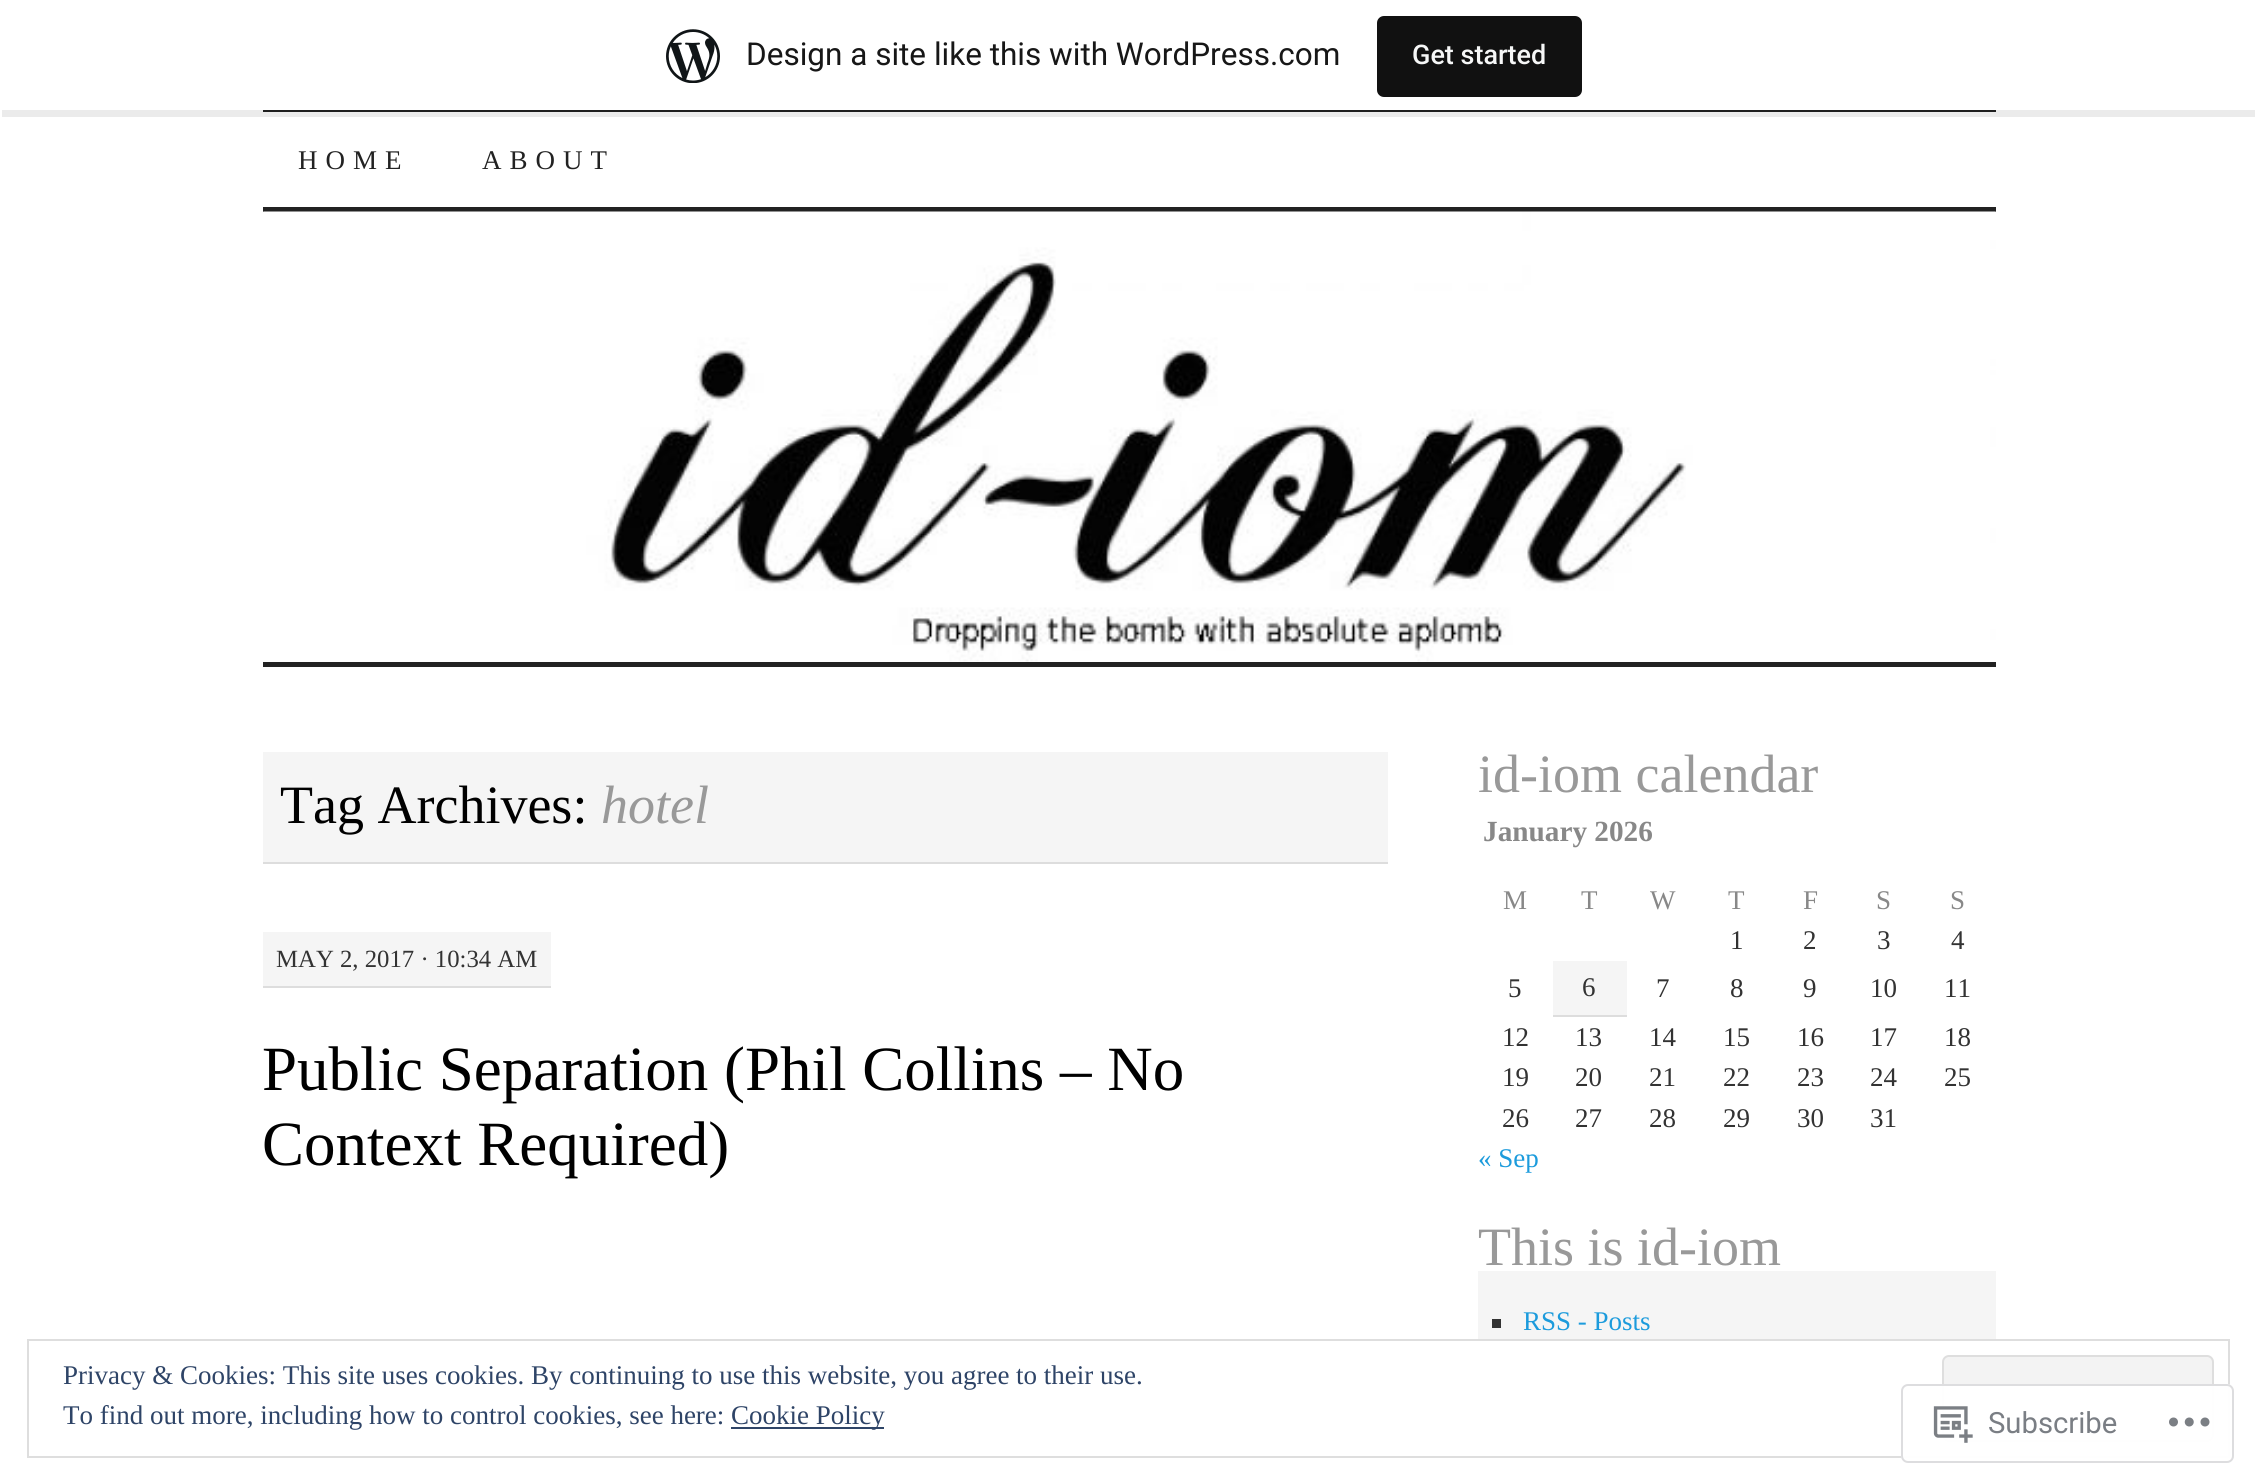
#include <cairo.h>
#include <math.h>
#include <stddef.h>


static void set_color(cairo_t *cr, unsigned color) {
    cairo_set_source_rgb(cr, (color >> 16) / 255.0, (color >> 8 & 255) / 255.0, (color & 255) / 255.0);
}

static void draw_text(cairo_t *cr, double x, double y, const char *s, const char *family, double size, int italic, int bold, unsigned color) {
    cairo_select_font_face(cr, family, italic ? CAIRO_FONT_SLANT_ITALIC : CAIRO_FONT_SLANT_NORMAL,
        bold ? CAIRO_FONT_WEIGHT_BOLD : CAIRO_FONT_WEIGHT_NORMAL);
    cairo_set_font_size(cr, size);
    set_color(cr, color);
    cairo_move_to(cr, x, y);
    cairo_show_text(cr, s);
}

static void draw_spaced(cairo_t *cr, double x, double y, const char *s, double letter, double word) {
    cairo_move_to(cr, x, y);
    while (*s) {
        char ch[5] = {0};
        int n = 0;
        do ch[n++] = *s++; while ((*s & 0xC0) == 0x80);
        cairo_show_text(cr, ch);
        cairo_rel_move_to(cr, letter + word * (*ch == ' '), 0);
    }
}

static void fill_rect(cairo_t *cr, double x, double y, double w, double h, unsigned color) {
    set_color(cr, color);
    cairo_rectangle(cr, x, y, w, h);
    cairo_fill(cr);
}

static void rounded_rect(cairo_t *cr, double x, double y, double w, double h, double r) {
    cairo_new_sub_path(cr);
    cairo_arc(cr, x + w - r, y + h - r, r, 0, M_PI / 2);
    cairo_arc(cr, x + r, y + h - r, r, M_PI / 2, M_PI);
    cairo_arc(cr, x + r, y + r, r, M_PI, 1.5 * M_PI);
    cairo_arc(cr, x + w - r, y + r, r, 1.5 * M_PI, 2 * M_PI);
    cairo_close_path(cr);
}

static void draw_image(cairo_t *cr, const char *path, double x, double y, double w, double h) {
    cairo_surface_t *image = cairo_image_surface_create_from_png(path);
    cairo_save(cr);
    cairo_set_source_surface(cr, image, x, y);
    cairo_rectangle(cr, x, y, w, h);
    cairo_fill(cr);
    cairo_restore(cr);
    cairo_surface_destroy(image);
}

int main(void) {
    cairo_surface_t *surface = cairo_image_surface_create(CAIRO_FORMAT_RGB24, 2255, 1483);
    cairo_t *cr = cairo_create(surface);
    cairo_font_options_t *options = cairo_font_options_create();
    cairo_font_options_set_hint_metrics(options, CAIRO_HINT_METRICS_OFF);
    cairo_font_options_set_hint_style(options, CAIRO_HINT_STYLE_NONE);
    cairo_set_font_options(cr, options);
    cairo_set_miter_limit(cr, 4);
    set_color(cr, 0xFFFFFF);
    cairo_paint(cr);
    fill_rect(cr, 263, 110, 1733, 2, 0x222222);
    cairo_set_source_rgba(cr, 0, 0, 0, 0.08);
    cairo_new_path(cr);
    cairo_move_to(cr, 2, 110);
    cairo_line_to(cr, 2, 117);
    cairo_line_to(cr, 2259, 117);
    cairo_line_to(cr, 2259, 7);
    cairo_line_to(cr, 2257, 7);
    cairo_line_to(cr, 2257, 110);
    cairo_close_path(cr);
    cairo_fill(cr);
    draw_image(cr, "assets/img1.png", 666, 29, 54, 54);
    draw_text(cr, 746, 65, "Design a site like this with WordPress.com", "Roboto", 31.5, 0, 0, 0x171717);
    set_color(cr, 0x111111);
    rounded_rect(cr, 1377, 16, 205, 81, 7);
    cairo_fill(cr);
    draw_text(cr, 1412, 64, "Get started", "Roboto Medium", 27, 0, 0, 0xF6F7F7);
    fill_rect(cr, 263, 207, 1733, 5, 0x222222);
    cairo_select_font_face(cr, "Liberation Serif", CAIRO_FONT_SLANT_NORMAL, CAIRO_FONT_WEIGHT_NORMAL);
    draw_spaced(cr, 298, 169, "HOME", 8, 0);
    draw_spaced(cr, 482, 169, "ABOUT", 8, 0);
    draw_image(cr, "assets/img2.png", 263, 211, 1733, 451);
    fill_rect(cr, 263, 662, 1733, 5, 0x222222);
    fill_rect(cr, 263, 752, 1125, 110, 0xF5F5F5);
    fill_rect(cr, 263, 862, 1125, 2, 0xDDDDDD);
    draw_text(cr, 280, 823, "Tag Archives:", "Liberation Serif", 54, 0, 0, 0x000000);
    draw_text(cr, 601, 823, "hotel", "Liberation Serif", 54, 1, 0, 0x999999);
    fill_rect(cr, 263, 932, 288, 54, 0xF5F5F5);
    fill_rect(cr, 263, 986, 288, 2, 0xDDDDDD);
    draw_text(cr, 276, 967, "MAY 2, 2017 · 10:34 AM", "Liberation Serif", 24.75, 0, 0, 0x333333);
    draw_text(cr, 262, 1090, "Public Separation (Phil Collins – No", "Liberation Serif", 63, 0, 0, 0x000000);
    draw_text(cr, 262, 1165, "Context Required)", "Liberation Serif", 63, 0, 0, 0x000000);
    draw_text(cr, 1478, 792, "id-iom calendar", "Liberation Serif", 54, 0, 0, 0x999999);
    draw_text(cr, 1483, 841, "January 2026", "Liberation Serif", 29.25, 0, 1, 0x888888);
    draw_text(cr, 1503, 909, "M", "Liberation Serif", 27, 0, 0, 0x888888);
    draw_text(cr, 1581, 909, "T", "Liberation Serif", 27, 0, 0, 0x888888);
    draw_text(cr, 1650, 909, "W", "Liberation Serif", 27, 0, 0, 0x888888);
    draw_text(cr, 1728, 909, "T", "Liberation Serif", 27, 0, 0, 0x888888);
    draw_text(cr, 1803, 909, "F", "Liberation Serif", 27, 0, 0, 0x888888);
    draw_text(cr, 1876, 909, "S", "Liberation Serif", 27, 0, 0, 0x888888);
    draw_text(cr, 1950, 909, "S", "Liberation Serif", 27, 0, 0, 0x888888);
    draw_text(cr, 1730, 949, "1", "Liberation Serif", 27, 0, 0, 0x333333);
    draw_text(cr, 1803, 949, "2", "Liberation Serif", 27, 0, 0, 0x333333);
    draw_text(cr, 1877, 949, "3", "Liberation Serif", 27, 0, 0, 0x333333);
    draw_text(cr, 1951, 949, "4", "Liberation Serif", 27, 0, 0, 0x333333);
    draw_text(cr, 1508, 997, "5", "Liberation Serif", 27, 0, 0, 0x333333);
    fill_rect(cr, 1553, 961, 74, 54, 0xF5F5F5);
    fill_rect(cr, 1553, 1015, 74, 2, 0xDDDDDD);
    draw_text(cr, 1582, 996, "6", "Liberation Serif", 27, 0, 0, 0x333333);
    draw_text(cr, 1656, 997, "7", "Liberation Serif", 27, 0, 0, 0x333333);
    draw_text(cr, 1730, 997, "8", "Liberation Serif", 27, 0, 0, 0x333333);
    draw_text(cr, 1803, 997, "9", "Liberation Serif", 27, 0, 0, 0x333333);
    draw_text(cr, 1870, 997, "10", "Liberation Serif", 27, 0, 0, 0x333333);
    draw_text(cr, 1944, 997, "11", "Liberation Serif", 27, 0, 0, 0x333333);
    draw_text(cr, 1502, 1046, "12", "Liberation Serif", 27, 0, 0, 0x333333);
    draw_text(cr, 1575, 1046, "13", "Liberation Serif", 27, 0, 0, 0x333333);
    draw_text(cr, 1649, 1046, "14", "Liberation Serif", 27, 0, 0, 0x333333);
    draw_text(cr, 1723, 1046, "15", "Liberation Serif", 27, 0, 0, 0x333333);
    draw_text(cr, 1797, 1046, "16", "Liberation Serif", 27, 0, 0, 0x333333);
    draw_text(cr, 1870, 1046, "17", "Liberation Serif", 27, 0, 0, 0x333333);
    draw_text(cr, 1944, 1046, "18", "Liberation Serif", 27, 0, 0, 0x333333);
    draw_text(cr, 1502, 1086, "19", "Liberation Serif", 27, 0, 0, 0x333333);
    draw_text(cr, 1575, 1086, "20", "Liberation Serif", 27, 0, 0, 0x333333);
    draw_text(cr, 1649, 1086, "21", "Liberation Serif", 27, 0, 0, 0x333333);
    draw_text(cr, 1723, 1086, "22", "Liberation Serif", 27, 0, 0, 0x333333);
    draw_text(cr, 1797, 1086, "23", "Liberation Serif", 27, 0, 0, 0x333333);
    draw_text(cr, 1870, 1086, "24", "Liberation Serif", 27, 0, 0, 0x333333);
    draw_text(cr, 1944, 1086, "25", "Liberation Serif", 27, 0, 0, 0x333333);
    draw_text(cr, 1502, 1127, "26", "Liberation Serif", 27, 0, 0, 0x333333);
    draw_text(cr, 1575, 1127, "27", "Liberation Serif", 27, 0, 0, 0x333333);
    draw_text(cr, 1649, 1127, "28", "Liberation Serif", 27, 0, 0, 0x333333);
    draw_text(cr, 1723, 1127, "29", "Liberation Serif", 27, 0, 0, 0x333333);
    draw_text(cr, 1797, 1127, "30", "Liberation Serif", 27, 0, 0, 0x333333);
    draw_text(cr, 1870, 1127, "31", "Liberation Serif", 27, 0, 0, 0x333333);
    draw_text(cr, 1478, 1167, "« Sep", "Liberation Serif", 27, 0, 0, 0x1C9BDC);
    draw_text(cr, 1478, 1265, "This is id-iom", "Liberation Serif", 54, 0, 0, 0x999999);
    fill_rect(cr, 1478, 1271, 518, 68, 0xF5F5F5);
    fill_rect(cr, 1492, 1319, 9, 9, 0x333333);
    draw_text(cr, 1523, 1330, "RSS - Posts", "Liberation Serif", 27, 0, 0, 0x1C9BDC);
    cairo_rectangle(cr, 28, 1340, 2201, 117);
    set_color(cr, 0xDEDEDE);
    cairo_stroke(cr);
    draw_text(cr, 63, 1384, "Privacy & Cookies: This site uses cookies. By continuing to use this website, you agree to their use.", "Liberation Serif", 27, 0, 0, 0x2E4467);
    set_color(cr, 0xF3F3F3);
    rounded_rect(cr, 1943, 1356, 270, 85, 6);
    cairo_fill_preserve(cr);
    set_color(cr, 0xDEDEDE);
    cairo_stroke(cr);
    draw_text(cr, 63, 1424, "To find out more, including how to control cookies, see here:", "Liberation Serif", 27, 0, 0, 0x2E4467);
    fill_rect(cr, 731, 1427, 153, 2, 0x2E4467);
    draw_text(cr, 731, 1424, "Cookie Policy", "Liberation Serif", 27, 0, 0, 0x2E4467);
    cairo_set_source_rgba(cr, 1, 1, 1, 0.98);
    rounded_rect(cr, 1901, 1384, 333, 79, 7);
    cairo_fill(cr);
    rounded_rect(cr, 1902, 1385, 331, 77, 6);
    cairo_set_source_rgba(cr, 0.863, 0.863, 0.871, 0.98);
    cairo_stroke(cr);
    draw_image(cr, "assets/img3.png", 1933, 1406, 40, 37);
    draw_text(cr, 1988, 1433, "Subscribe", "Roboto", 29.25, 0, 0, 0x7A7E84);
    draw_image(cr, "assets/img4.png", 2169, 1417, 41, 10);
    cairo_surface_write_to_png(surface, "output.png");
    cairo_font_options_destroy(options);
    cairo_destroy(cr);
    cairo_surface_destroy(surface);
    return 0;
}
